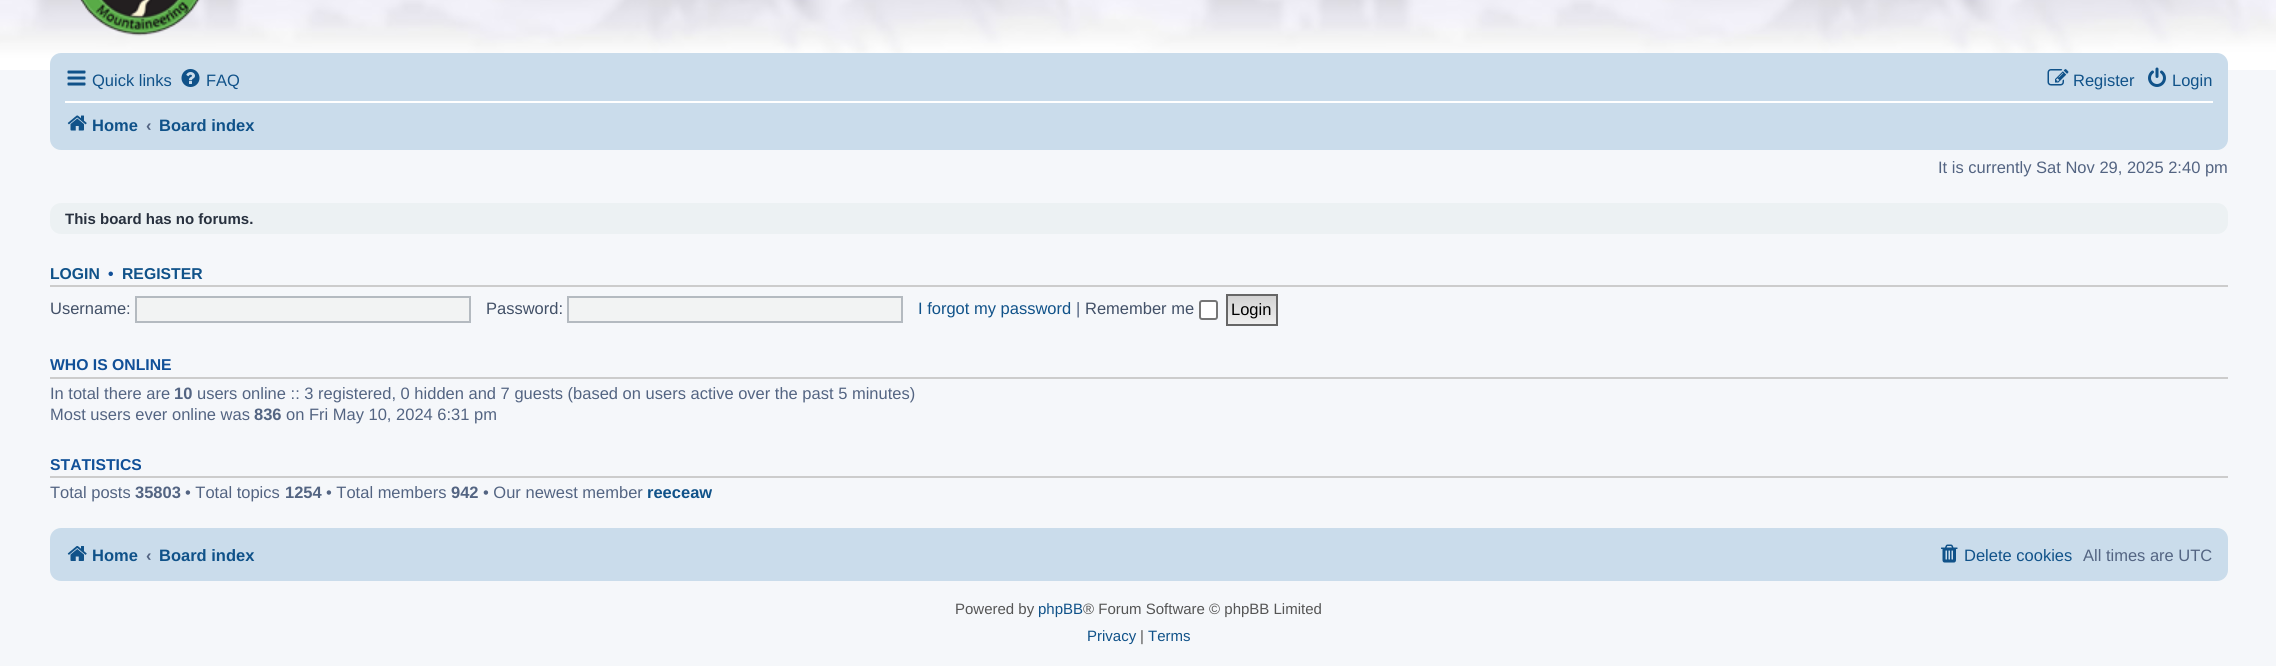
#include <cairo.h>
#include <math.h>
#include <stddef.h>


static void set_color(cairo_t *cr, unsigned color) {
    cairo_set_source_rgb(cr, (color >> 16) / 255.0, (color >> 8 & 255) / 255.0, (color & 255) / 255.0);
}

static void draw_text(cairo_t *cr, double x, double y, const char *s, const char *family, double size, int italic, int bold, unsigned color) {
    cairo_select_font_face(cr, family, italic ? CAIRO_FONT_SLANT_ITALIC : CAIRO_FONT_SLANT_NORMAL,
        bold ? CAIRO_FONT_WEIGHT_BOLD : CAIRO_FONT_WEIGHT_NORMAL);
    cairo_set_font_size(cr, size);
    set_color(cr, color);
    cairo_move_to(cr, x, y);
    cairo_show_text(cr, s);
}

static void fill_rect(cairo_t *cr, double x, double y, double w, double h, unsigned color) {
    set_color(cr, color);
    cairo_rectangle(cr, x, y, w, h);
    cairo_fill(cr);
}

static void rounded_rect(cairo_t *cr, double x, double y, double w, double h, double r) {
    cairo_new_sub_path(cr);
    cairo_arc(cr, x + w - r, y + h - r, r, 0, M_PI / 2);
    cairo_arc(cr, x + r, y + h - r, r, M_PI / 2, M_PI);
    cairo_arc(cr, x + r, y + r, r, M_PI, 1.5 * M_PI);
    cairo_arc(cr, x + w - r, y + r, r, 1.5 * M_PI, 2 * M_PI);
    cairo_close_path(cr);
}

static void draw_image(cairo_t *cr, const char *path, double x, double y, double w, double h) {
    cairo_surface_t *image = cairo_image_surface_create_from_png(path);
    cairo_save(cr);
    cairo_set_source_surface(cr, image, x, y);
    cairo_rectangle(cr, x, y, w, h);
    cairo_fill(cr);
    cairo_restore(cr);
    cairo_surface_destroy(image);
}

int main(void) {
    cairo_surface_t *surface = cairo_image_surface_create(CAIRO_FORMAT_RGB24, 2276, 666);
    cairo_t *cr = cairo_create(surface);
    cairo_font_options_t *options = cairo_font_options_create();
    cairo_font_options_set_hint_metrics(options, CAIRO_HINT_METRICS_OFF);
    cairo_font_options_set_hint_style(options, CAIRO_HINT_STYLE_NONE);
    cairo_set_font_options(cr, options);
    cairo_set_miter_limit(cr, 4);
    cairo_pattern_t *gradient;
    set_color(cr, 0xF5F7FA);
    cairo_paint(cr);
    draw_image(cr, "assets/img1.png", 0, 0, 2276, 70);
    draw_image(cr, "assets/img2.png", 80, 0, 120, 36);
    set_color(cr, 0xCADCEB);
    rounded_rect(cr, 50, 53, 2178, 97, 11);
    cairo_fill(cr);
    draw_image(cr, "assets/img3.png", 67, 70, 19, 16);
    draw_text(cr, 92, 86, "Quick links", "Liberation Sans", 16.5, 0, 0, 0x105289);
    draw_image(cr, "assets/img4.png", 181, 69, 19, 18);
    draw_text(cr, 206, 86, "FAQ", "Liberation Sans", 16.5, 0, 0, 0x105289);
    draw_image(cr, "assets/img5.png", 2047, 69, 22, 17);
    draw_text(cr, 2073, 86, "Register", "Liberation Sans", 16.5, 0, 0, 0x105289);
    draw_image(cr, "assets/img6.png", 2148, 67, 18, 20);
    draw_text(cr, 2172, 86, "Login", "Liberation Sans", 16.5, 0, 0, 0x105289);
    fill_rect(cr, 65, 101, 2148, 2, 0xFFFFFF);
    draw_image(cr, "assets/img7.png", 67, 115, 20, 16);
    draw_text(cr, 92, 131, "Home", "Liberation Sans", 16.5, 0, 1, 0x105289);
    draw_text(cr, 146, 131, "‹", "Liberation Sans", 16.5, 0, 1, 0x536482);
    draw_text(cr, 159, 131, "Board index", "Liberation Sans", 16.5, 0, 1, 0x105289);
    draw_text(cr, 1938, 173, "It is currently Sat Nov 29, 2025 2:40 pm", "Liberation Sans", 16.5, 0, 0, 0x536482);
    set_color(cr, 0xECF1F3);
    rounded_rect(cr, 50, 203, 2178, 31, 11);
    cairo_fill(cr);
    draw_text(cr, 65, 224, "This board has no forums.", "Liberation Sans", 15, 0, 1, 0x28313F);
    fill_rect(cr, 50, 285, 2178, 2, 0xCCCCCC);
    draw_text(cr, 50, 279, "LOGIN", "Liberation Sans", 15.75, 0, 1, 0x105289);
    draw_text(cr, 108, 279, "•", "Liberation Sans", 15.75, 0, 1, 0x115098);
    draw_text(cr, 122, 279, "REGISTER", "Liberation Sans", 15.75, 0, 1, 0x105289);
    draw_text(cr, 50, 314, "Username:", "Liberation Sans", 16.5, 0, 0, 0x425067);
    set_color(cr, 0xF2F3F3);
    cairo_rectangle(cr, 136, 297, 334, 25);
    cairo_fill_preserve(cr);
    set_color(cr, 0xB4BAC0);
    cairo_stroke(cr);
    draw_text(cr, 486, 314, "Password:", "Liberation Sans", 16.5, 0, 0, 0x425067);
    set_color(cr, 0xF2F3F3);
    cairo_rectangle(cr, 568, 297, 334, 25);
    cairo_fill_preserve(cr);
    set_color(cr, 0xB4BAC0);
    cairo_stroke(cr);
    draw_text(cr, 918, 314, "I forgot my password", "Liberation Sans", 16.5, 0, 0, 0x105289);
    draw_text(cr, 1076, 314, "|", "Liberation Sans", 16.5, 0, 0, 0x536482);
    draw_text(cr, 1085, 314, "Remember me", "Liberation Sans", 16.5, 0, 0, 0x425067);
    set_color(cr, 0xFFFFFF);
    rounded_rect(cr, 1200, 301, 17, 18, 2);
    cairo_fill_preserve(cr);
    set_color(cr, 0x767676);
    cairo_stroke(cr);
    gradient = cairo_pattern_create_linear(1252, 296, 1252, 324);
    cairo_pattern_add_color_stop_rgba(gradient, 0, 0.824, 0.824, 0.824, 1);
    cairo_pattern_add_color_stop_rgba(gradient, 1, 0.937, 0.937, 0.937, 1);
    cairo_set_source(cr, gradient);
    cairo_pattern_destroy(gradient);
    cairo_rectangle(cr, 1228, 296, 48, 28);
    cairo_fill(cr);
    cairo_rectangle(cr, 1227, 295, 50, 30);
    set_color(cr, 0x666666);
    cairo_stroke(cr);
    draw_text(cr, 1231, 315, "Login", "Liberation Sans", 16.5, 0, 0, 0x000000);
    fill_rect(cr, 50, 377, 2178, 2, 0xCCCCCC);
    draw_text(cr, 50, 370, "WHO IS ONLINE", "Liberation Sans", 15.75, 0, 1, 0x115098);
    draw_text(cr, 50, 399, "In total there are", "Liberation Sans", 16.5, 0, 0, 0x536482);
    draw_text(cr, 174, 399, "10", "Liberation Sans", 16.5, 0, 1, 0x536482);
    draw_text(cr, 197, 399, "users online :: 3 registered, 0 hidden and 7 guests (based on users active over the past 5 minutes)", "Liberation Sans", 16.5, 0, 0, 0x536482);
    draw_text(cr, 50, 420, "Most users ever online was", "Liberation Sans", 16.5, 0, 0, 0x536482);
    draw_text(cr, 254, 420, "836", "Liberation Sans", 16.5, 0, 1, 0x536482);
    draw_text(cr, 286, 420, "on Fri May 10, 2024 6:31 pm", "Liberation Sans", 16.5, 0, 0, 0x536482);
    fill_rect(cr, 50, 476, 2178, 2, 0xCCCCCC);
    draw_text(cr, 50, 470, "STATISTICS", "Liberation Sans", 15.75, 0, 1, 0x115098);
    draw_text(cr, 50, 498, "Total posts", "Liberation Sans", 16.5, 0, 0, 0x536482);
    draw_text(cr, 135, 498, "35803", "Liberation Sans", 16.5, 0, 1, 0x536482);
    draw_text(cr, 185, 498, "• Total topics", "Liberation Sans", 16.5, 0, 0, 0x536482);
    draw_text(cr, 285, 498, "1254", "Liberation Sans", 16.5, 0, 1, 0x536482);
    draw_text(cr, 326, 498, "• Total members", "Liberation Sans", 16.5, 0, 0, 0x536482);
    draw_text(cr, 451, 498, "942", "Liberation Sans", 16.5, 0, 1, 0x536482);
    draw_text(cr, 483, 498, "• Our newest member", "Liberation Sans", 16.5, 0, 0, 0x536482);
    draw_text(cr, 647, 498, "reeceaw", "Liberation Sans", 16.5, 0, 1, 0x105289);
    set_color(cr, 0xCADCEB);
    rounded_rect(cr, 50, 528, 2178, 53, 11);
    cairo_fill(cr);
    draw_image(cr, "assets/img8.png", 67, 546, 20, 15);
    draw_text(cr, 92, 561, "Home", "Liberation Sans", 16.5, 0, 1, 0x105289);
    draw_text(cr, 146, 561, "‹", "Liberation Sans", 16.5, 0, 1, 0x536482);
    draw_text(cr, 159, 561, "Board index", "Liberation Sans", 16.5, 0, 1, 0x105289);
    draw_image(cr, "assets/img9.png", 1941, 544, 17, 19);
    draw_text(cr, 1964, 561, "Delete cookies", "Liberation Sans", 16.5, 0, 0, 0x105289);
    draw_text(cr, 2083, 561, "All times are UTC", "Liberation Sans", 16.5, 0, 0, 0x536482);
    draw_text(cr, 955, 614, "Powered by", "Liberation Sans", 15, 0, 0, 0x555555);
    draw_text(cr, 1038, 614, "phpBB", "Liberation Sans", 15, 0, 0, 0x105289);
    draw_text(cr, 1083, 614, "® Forum Software © phpBB Limited", "Liberation Sans", 15, 0, 0, 0x555555);
    draw_text(cr, 1087, 641, "Privacy", "Liberation Sans", 15, 0, 0, 0x105289);
    draw_text(cr, 1140, 641, "|", "Liberation Sans", 15, 0, 0, 0x555555);
    draw_text(cr, 1148, 641, "Terms", "Liberation Sans", 15, 0, 0, 0x105289);
    cairo_surface_write_to_png(surface, "output.png");
    cairo_font_options_destroy(options);
    cairo_destroy(cr);
    cairo_surface_destroy(surface);
    return 0;
}
